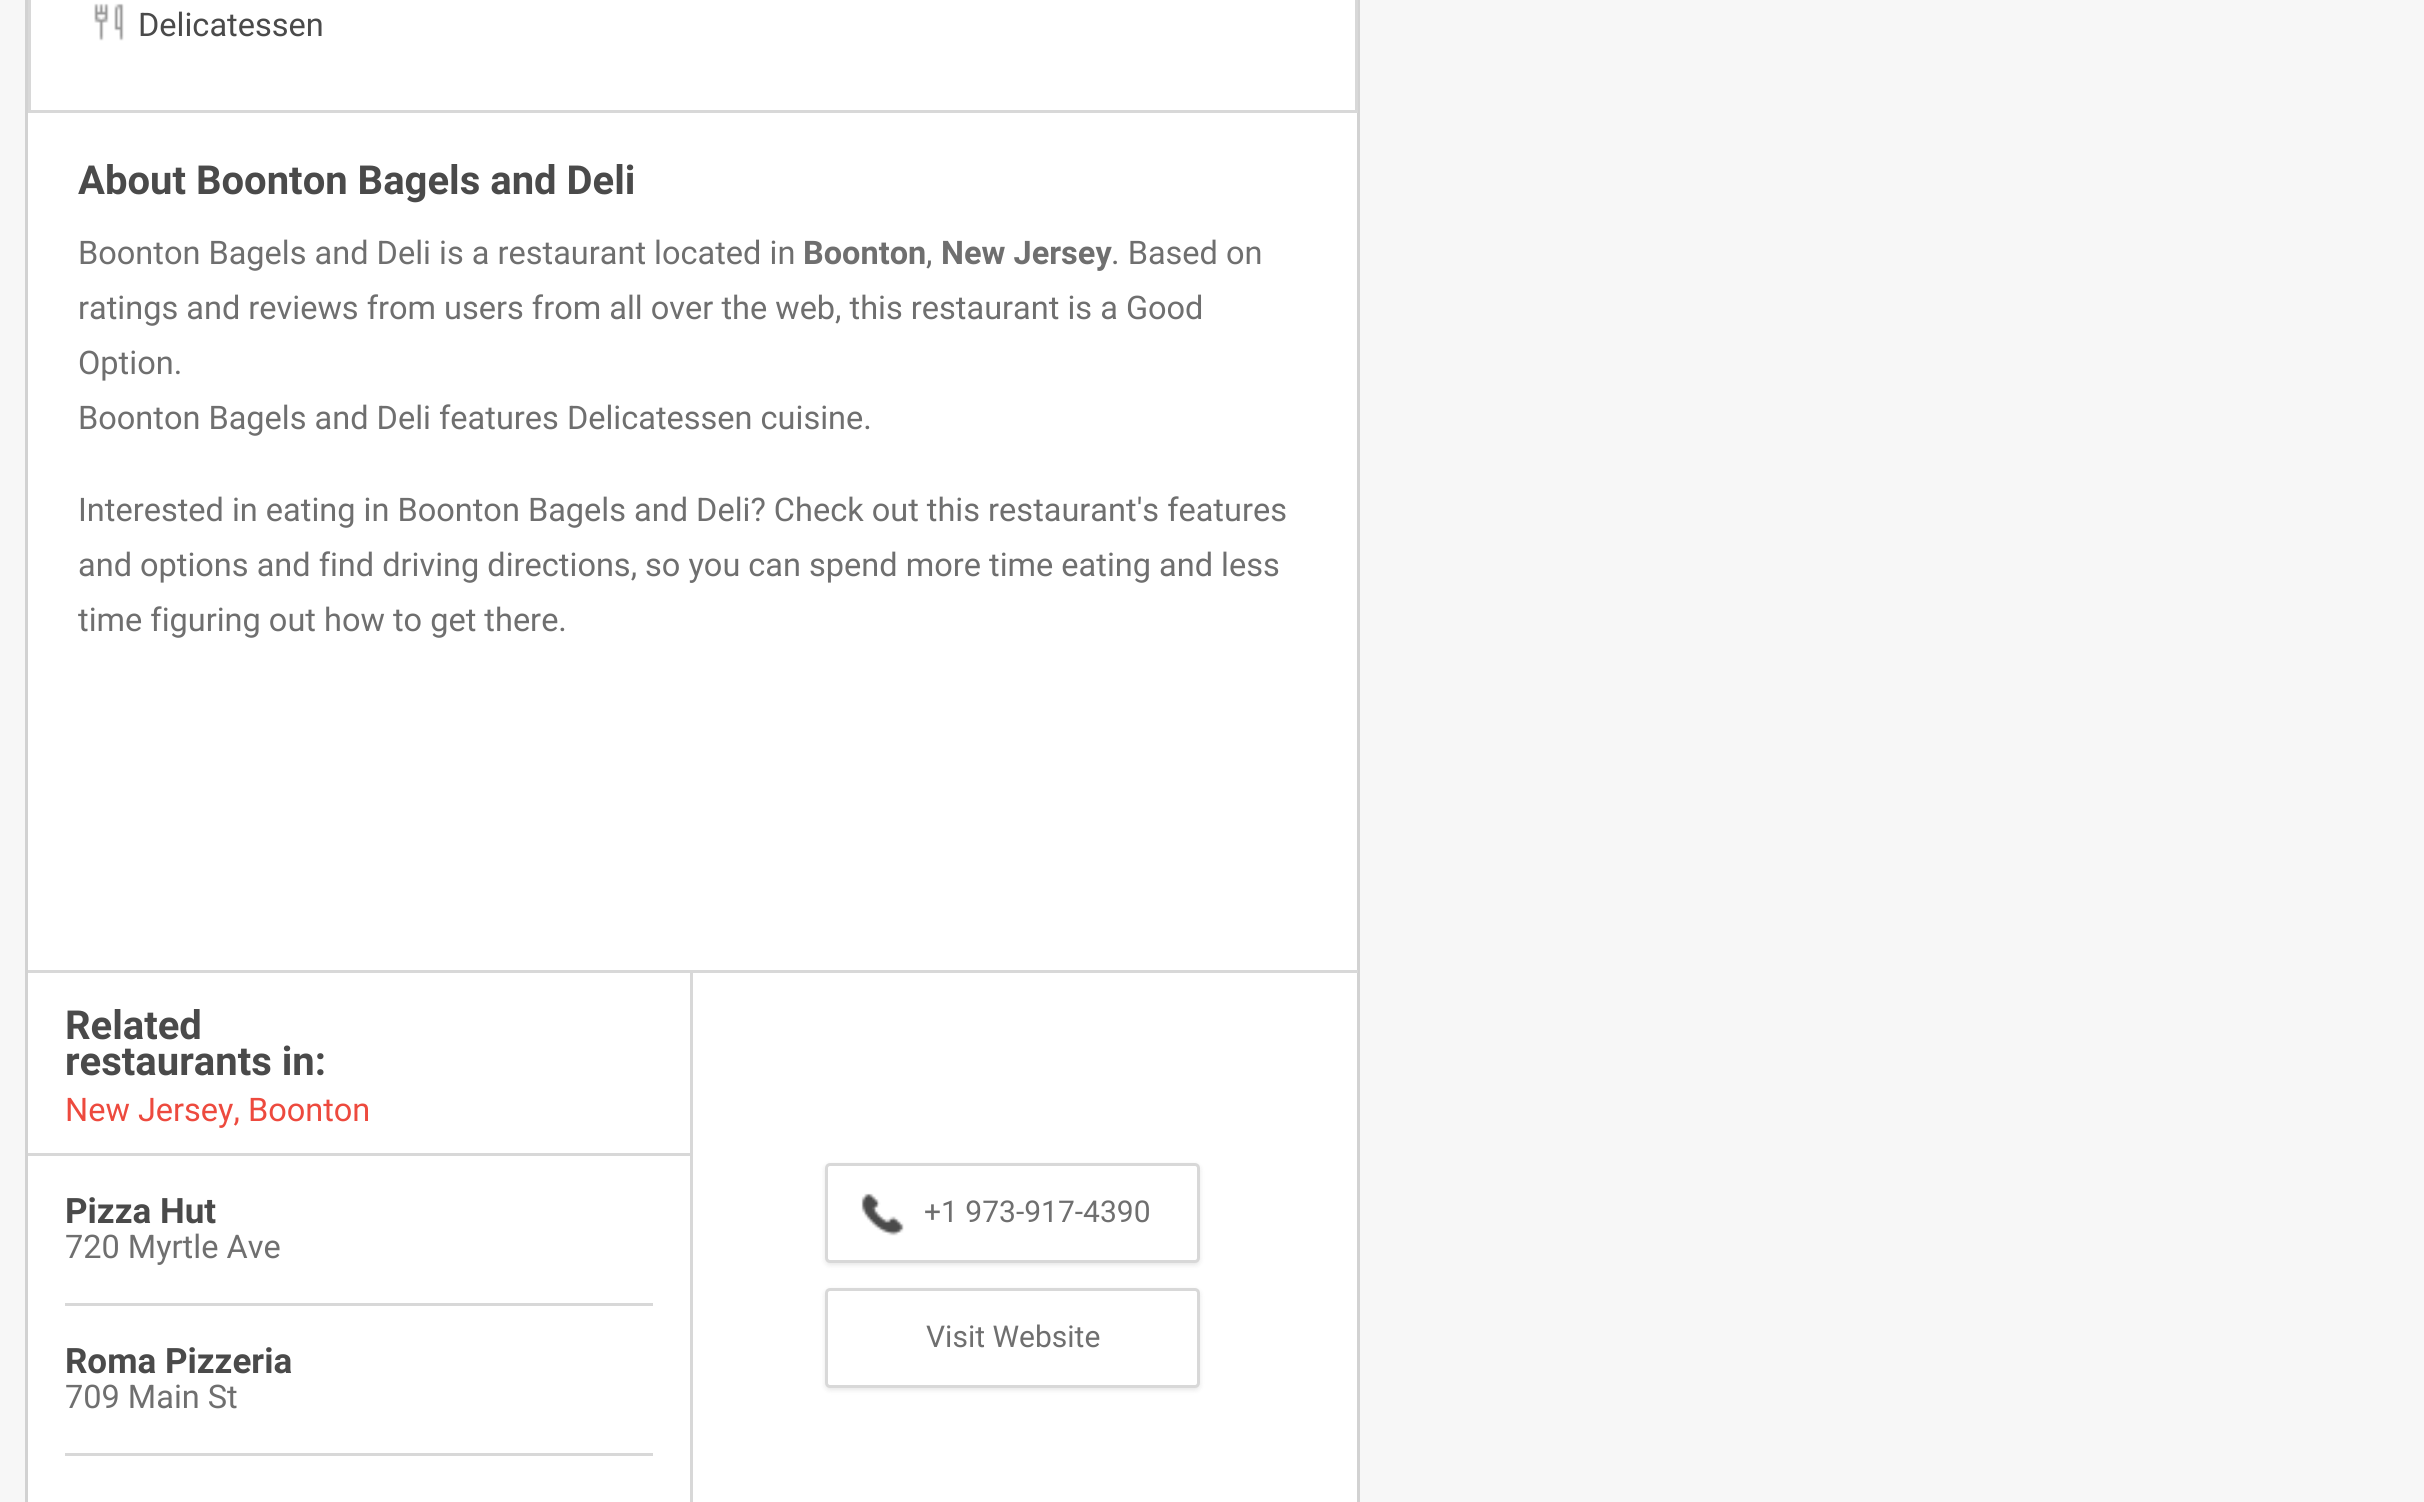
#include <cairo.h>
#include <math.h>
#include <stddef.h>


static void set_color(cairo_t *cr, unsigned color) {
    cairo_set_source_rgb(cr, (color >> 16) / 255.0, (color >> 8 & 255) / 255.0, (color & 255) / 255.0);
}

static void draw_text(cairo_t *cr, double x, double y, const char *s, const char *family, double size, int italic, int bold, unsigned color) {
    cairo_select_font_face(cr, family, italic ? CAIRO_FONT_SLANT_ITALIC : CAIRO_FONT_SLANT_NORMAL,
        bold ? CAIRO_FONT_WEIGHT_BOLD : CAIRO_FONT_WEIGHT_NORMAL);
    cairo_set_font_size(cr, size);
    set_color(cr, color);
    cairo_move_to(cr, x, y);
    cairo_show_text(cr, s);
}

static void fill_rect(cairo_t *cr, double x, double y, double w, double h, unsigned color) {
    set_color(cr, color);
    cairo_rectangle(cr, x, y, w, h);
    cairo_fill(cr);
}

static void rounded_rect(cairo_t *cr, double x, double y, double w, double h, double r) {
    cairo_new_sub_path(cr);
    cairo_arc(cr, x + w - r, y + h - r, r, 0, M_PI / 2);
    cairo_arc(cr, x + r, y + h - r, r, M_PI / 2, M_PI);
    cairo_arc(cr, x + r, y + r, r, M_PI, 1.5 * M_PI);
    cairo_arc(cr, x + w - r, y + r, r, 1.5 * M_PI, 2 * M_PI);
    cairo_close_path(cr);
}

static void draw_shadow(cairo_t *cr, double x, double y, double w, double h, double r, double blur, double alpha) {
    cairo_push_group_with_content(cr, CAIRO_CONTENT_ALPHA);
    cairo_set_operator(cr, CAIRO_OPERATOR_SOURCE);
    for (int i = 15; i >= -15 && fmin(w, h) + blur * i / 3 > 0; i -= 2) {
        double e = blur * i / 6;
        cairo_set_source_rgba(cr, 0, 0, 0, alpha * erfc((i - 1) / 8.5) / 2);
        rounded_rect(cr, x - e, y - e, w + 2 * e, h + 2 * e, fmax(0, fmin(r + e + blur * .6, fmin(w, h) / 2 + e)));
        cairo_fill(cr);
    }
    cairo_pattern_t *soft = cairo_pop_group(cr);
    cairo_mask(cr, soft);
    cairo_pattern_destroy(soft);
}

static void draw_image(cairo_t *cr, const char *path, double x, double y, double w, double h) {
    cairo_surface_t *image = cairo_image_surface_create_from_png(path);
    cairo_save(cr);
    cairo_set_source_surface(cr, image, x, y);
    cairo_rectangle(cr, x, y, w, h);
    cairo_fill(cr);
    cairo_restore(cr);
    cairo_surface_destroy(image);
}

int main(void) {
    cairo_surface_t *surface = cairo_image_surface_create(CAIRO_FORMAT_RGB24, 2424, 1502);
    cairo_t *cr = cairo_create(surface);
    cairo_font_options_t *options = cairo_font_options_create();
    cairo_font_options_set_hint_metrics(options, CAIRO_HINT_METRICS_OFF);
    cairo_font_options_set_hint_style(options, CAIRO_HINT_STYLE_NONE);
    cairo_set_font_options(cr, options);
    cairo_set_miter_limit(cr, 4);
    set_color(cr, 0xF7F7F7);
    cairo_paint(cr);
    fill_rect(cr, 28, 113, 1329, 1389, 0xFFFFFF);
    cairo_rectangle(cr, 26.5, -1.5, 1332, 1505);
    set_color(cr, 0xD2D2D2);
    cairo_set_line_width(cr, 3);
    cairo_stroke(cr);
    fill_rect(cr, 31, 0, 1324, 110, 0xFFFFFF);
    fill_rect(cr, 1355, 0, 3, 113, 0xD8D8D8);
    fill_rect(cr, 28, 110, 1330, 3, 0xD8D8D8);
    fill_rect(cr, 28, 0, 3, 113, 0xD8D8D8);
    draw_image(cr, "assets/img1.png", 94, 3, 30, 38);
    draw_text(cr, 138, 36, "Delicatessen", "Roboto", 32.5, 0, 0, 0x4A4A4A);
    draw_text(cr, 78, 194, "About Boonton Bagels and Deli", "Roboto", 40, 0, 1, 0x4A4A4A);
    draw_text(cr, 78, 264, "Boonton Bagels and Deli is a restaurant located in", "Roboto", 32.5, 0, 0, 0x6F6F6F);
    draw_text(cr, 803, 264, "Boonton", "Roboto", 32.5, 0, 1, 0x6F6F6F);
    draw_text(cr, 926, 264, ",", "Roboto", 32.5, 0, 0, 0x6F6F6F);
    draw_text(cr, 941, 264, "New Jersey", "Roboto", 32.5, 0, 1, 0x6F6F6F);
    draw_text(cr, 1111, 264, ". Based on", "Roboto", 32.5, 0, 0, 0x6F6F6F);
    draw_text(cr, 78, 319, "ratings and reviews from users from all over the web, this restaurant is a Good", "Roboto", 32.5, 0, 0, 0x6F6F6F);
    draw_text(cr, 78, 374, "Option.", "Roboto", 32.5, 0, 0, 0x6F6F6F);
    draw_text(cr, 78, 429, "Boonton Bagels and Deli features Delicatessen cuisine.", "Roboto", 32.5, 0, 0, 0x6F6F6F);
    draw_text(cr, 78, 521, "Interested in eating in Boonton Bagels and Deli? Check out this restaurant's features", "Roboto", 32.5, 0, 0, 0x6F6F6F);
    draw_text(cr, 78, 576, "and options and find driving directions, so you can spend more time eating and less", "Roboto", 32.5, 0, 0, 0x6F6F6F);
    draw_text(cr, 78, 631, "time figuring out how to get there.", "Roboto", 32.5, 0, 0, 0x6F6F6F);
    fill_rect(cr, 28, 970, 1330, 3, 0xD8D8D8);
    fill_rect(cr, 690, 970, 3, 532, 0xD8D8D8);
    fill_rect(cr, 28, 1153, 662, 3, 0xD8D8D8);
    draw_text(cr, 65, 1039, "Related", "Roboto", 40, 0, 1, 0x4A4A4A);
    draw_text(cr, 65, 1075, "restaurants in:", "Roboto", 40, 0, 1, 0x4A4A4A);
    draw_text(cr, 65, 1121, "New Jersey, Boonton", "Roboto", 32.5, 0, 0, 0xED4A3E);
    fill_rect(cr, 65, 1303, 588, 3, 0xD8D8D8);
    draw_text(cr, 65, 1223, "Pizza Hut", "Roboto", 35, 0, 1, 0x4A4A4A);
    draw_text(cr, 65, 1258, "720 Myrtle Ave", "Roboto", 32.5, 0, 0, 0x6F6F6F);
    fill_rect(cr, 65, 1453, 588, 3, 0xD8D8D8);
    draw_text(cr, 65, 1373, "Roma Pizzeria", "Roboto", 35, 0, 1, 0x4A4A4A);
    draw_text(cr, 65, 1408, "709 Main St", "Roboto", 32.5, 0, 0, 0x6F6F6F);
    set_color(cr, 0x000000);
    draw_shadow(cr, 825, 1165, 375, 100, 5, 2.5, 0.1);
    set_color(cr, 0xFFFFFF);
    rounded_rect(cr, 826.5, 1164.5, 372, 97, 3.5);
    cairo_fill_preserve(cr);
    set_color(cr, 0xD8D8D8);
    cairo_stroke(cr);
    draw_image(cr, "assets/img2.png", 861, 1193, 43, 43);
    draw_text(cr, 924, 1222, "+1 973-917-4390", "Roboto", 30, 0, 0, 0x6F6F6F);
    set_color(cr, 0x000000);
    draw_shadow(cr, 825, 1290, 375, 100, 5, 2.5, 0.1);
    set_color(cr, 0xFFFFFF);
    rounded_rect(cr, 826.5, 1289.5, 372, 97, 3.5);
    cairo_fill_preserve(cr);
    set_color(cr, 0xD8D8D8);
    cairo_stroke(cr);
    draw_text(cr, 926, 1347, "Visit Website", "Roboto", 30, 0, 0, 0x6F6F6F);
    cairo_surface_write_to_png(surface, "output.png");
    cairo_font_options_destroy(options);
    cairo_destroy(cr);
    cairo_surface_destroy(surface);
    return 0;
}
